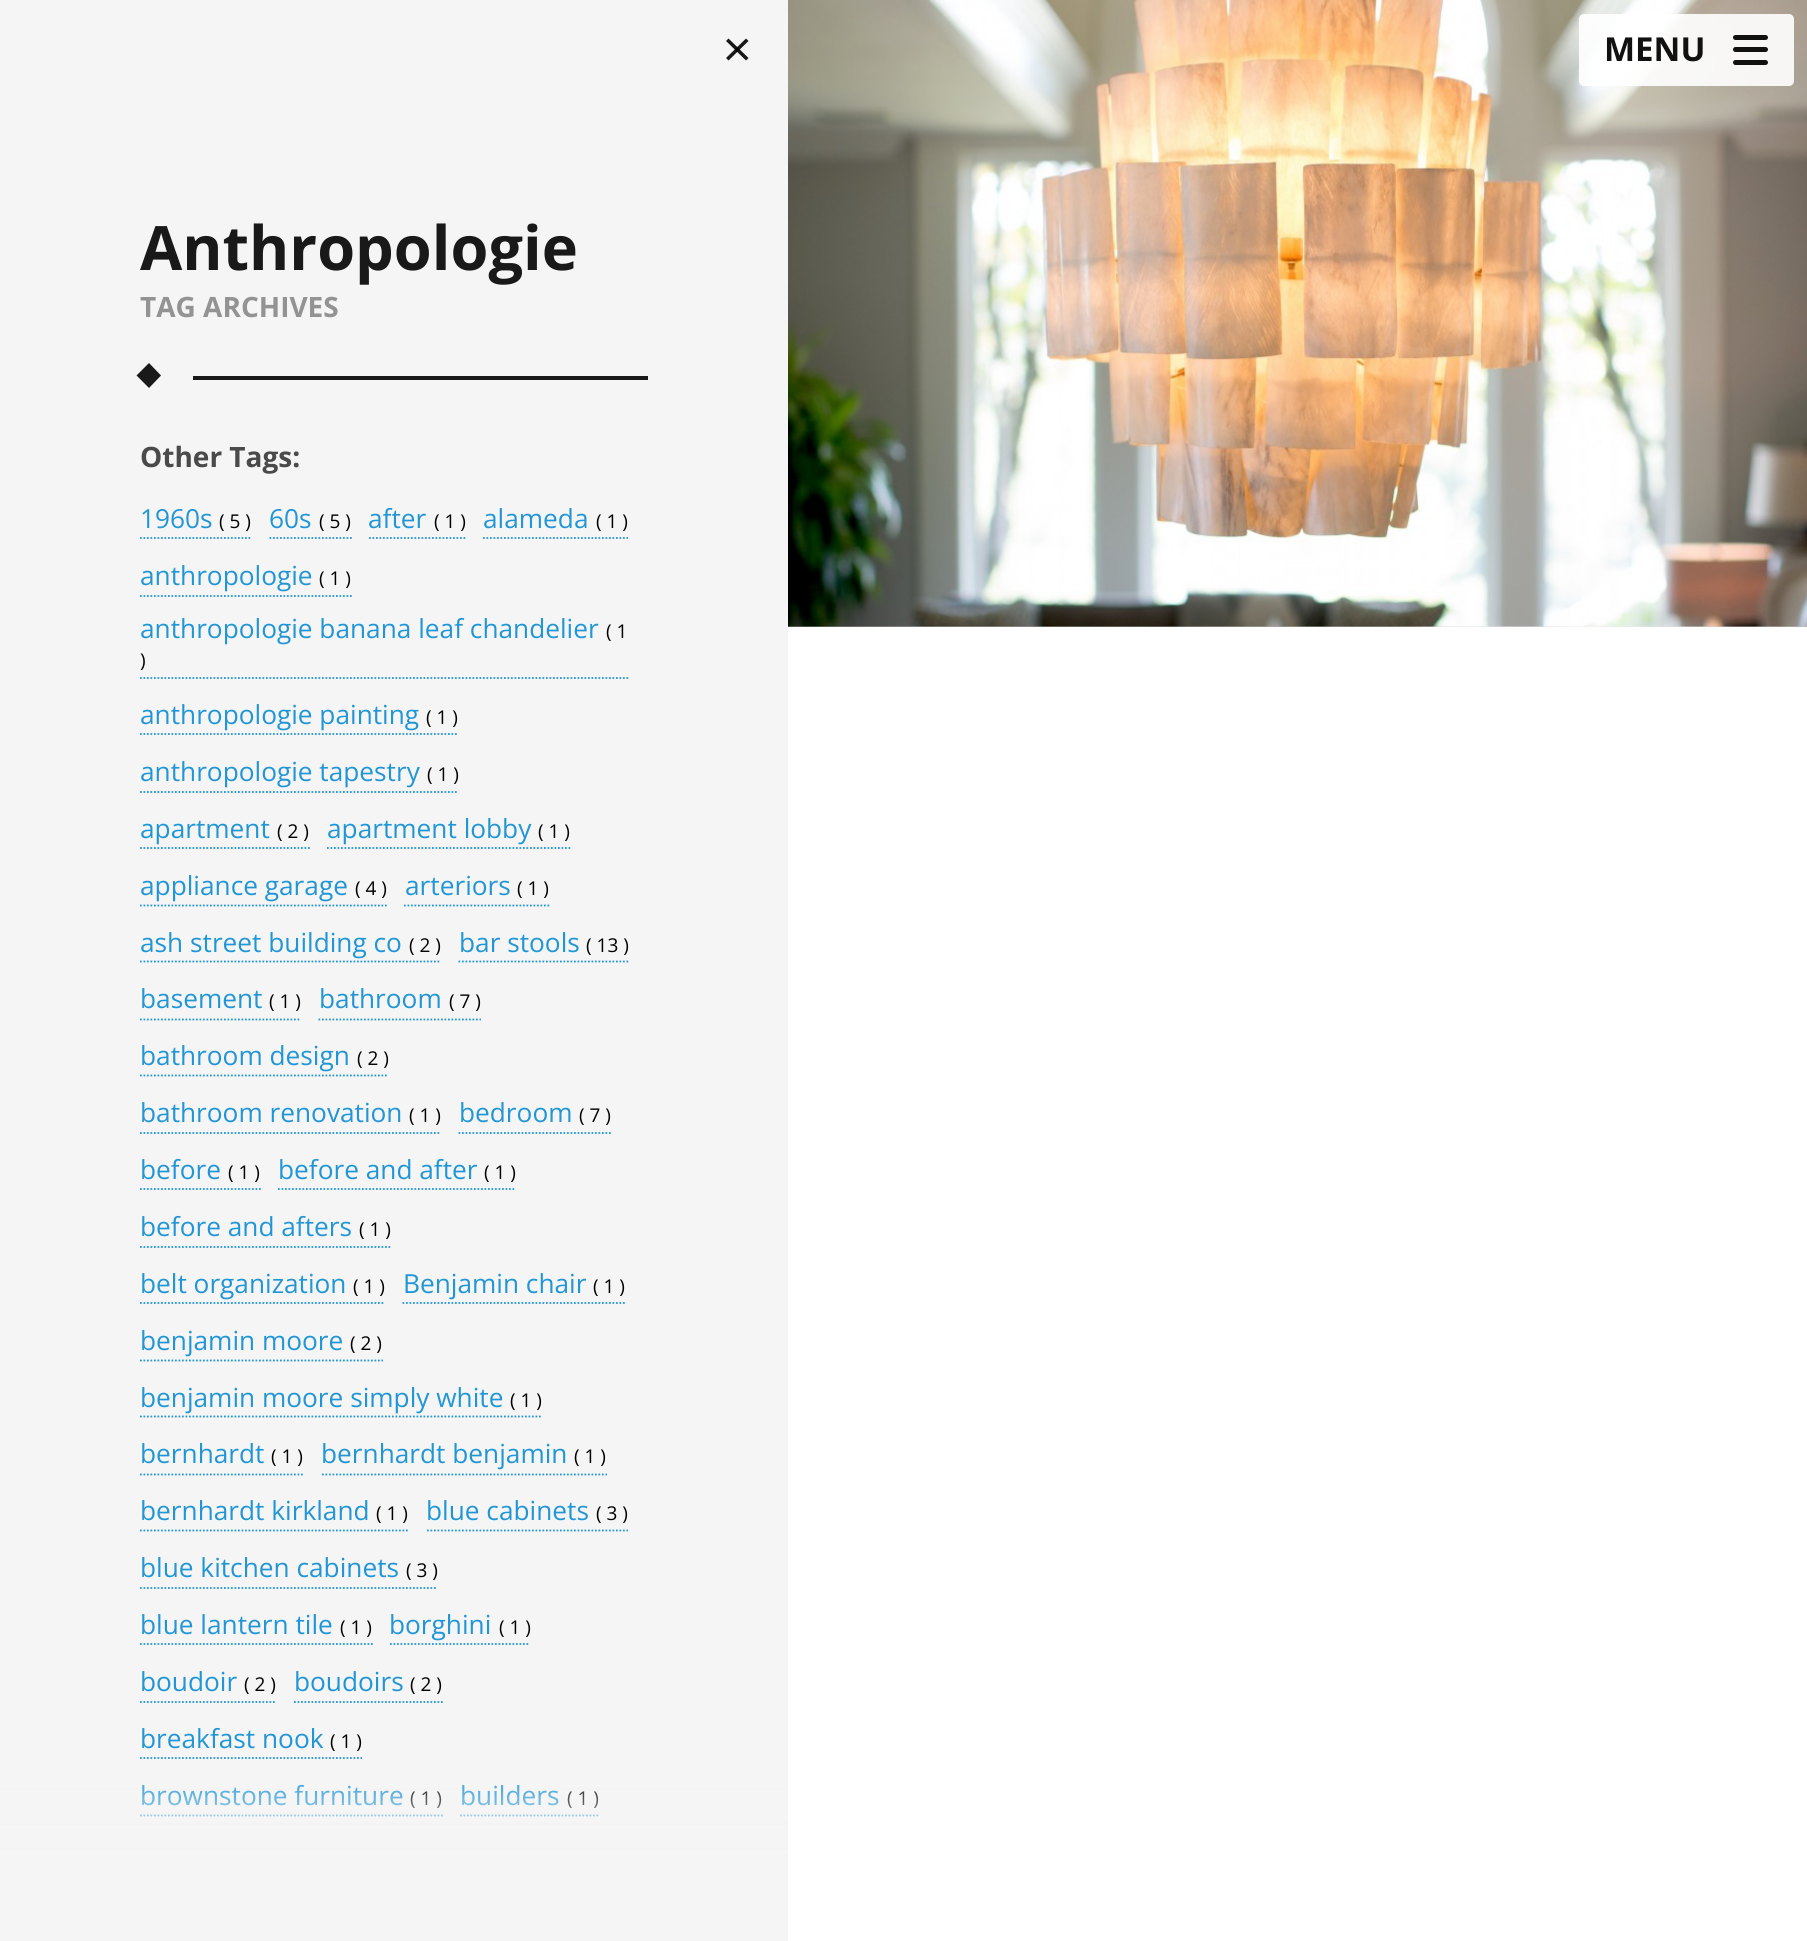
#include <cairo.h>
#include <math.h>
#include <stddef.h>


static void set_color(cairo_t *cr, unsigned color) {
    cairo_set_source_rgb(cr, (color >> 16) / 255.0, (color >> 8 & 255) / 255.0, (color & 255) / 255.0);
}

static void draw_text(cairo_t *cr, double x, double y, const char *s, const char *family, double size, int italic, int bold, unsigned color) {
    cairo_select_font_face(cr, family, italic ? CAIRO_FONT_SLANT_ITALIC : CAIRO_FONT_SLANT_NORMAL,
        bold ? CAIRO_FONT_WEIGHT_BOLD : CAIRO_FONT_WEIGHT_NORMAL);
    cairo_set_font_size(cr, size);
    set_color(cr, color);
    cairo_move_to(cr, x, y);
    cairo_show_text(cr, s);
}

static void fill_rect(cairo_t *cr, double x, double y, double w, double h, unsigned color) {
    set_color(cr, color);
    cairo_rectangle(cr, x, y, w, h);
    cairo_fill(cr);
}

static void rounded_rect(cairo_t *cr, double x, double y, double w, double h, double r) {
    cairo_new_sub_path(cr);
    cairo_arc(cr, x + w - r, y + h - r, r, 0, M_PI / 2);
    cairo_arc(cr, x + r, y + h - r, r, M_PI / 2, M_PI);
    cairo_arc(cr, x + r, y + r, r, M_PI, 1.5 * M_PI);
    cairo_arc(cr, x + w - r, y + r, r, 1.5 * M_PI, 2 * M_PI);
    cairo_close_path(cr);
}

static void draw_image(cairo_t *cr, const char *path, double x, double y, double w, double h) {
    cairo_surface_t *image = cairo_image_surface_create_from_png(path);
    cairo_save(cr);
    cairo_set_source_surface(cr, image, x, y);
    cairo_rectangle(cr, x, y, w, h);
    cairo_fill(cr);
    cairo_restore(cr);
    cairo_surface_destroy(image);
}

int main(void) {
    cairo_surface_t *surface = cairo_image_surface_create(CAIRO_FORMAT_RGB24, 1807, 1941);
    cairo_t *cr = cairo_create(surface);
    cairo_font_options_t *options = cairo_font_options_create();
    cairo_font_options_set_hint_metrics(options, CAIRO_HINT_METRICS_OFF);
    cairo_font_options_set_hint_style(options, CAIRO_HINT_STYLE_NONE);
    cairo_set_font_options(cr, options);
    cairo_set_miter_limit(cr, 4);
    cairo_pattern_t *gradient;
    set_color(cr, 0xFFFFFF);
    cairo_paint(cr);
    draw_image(cr, "assets/img2.png", 788, 626, 1019, 1);
    draw_image(cr, "assets/img1.png", 788, 0, 1019, 627);
    cairo_set_source_rgba(cr, 1, 1, 1, 0.9);
    rounded_rect(cr, 1579, 14, 215, 72, 5);
    cairo_fill(cr);
    draw_text(cr, 1604, 61, "MENU", "Open Sans", 33, 0, 1, 0x111111);
    rounded_rect(cr, 1733, 35, 35, 5, 2.5);
    cairo_fill(cr);
    rounded_rect(cr, 1733, 47, 35, 5, 2.5);
    cairo_fill(cr);
    rounded_rect(cr, 1733, 60, 35, 5, 2.5);
    cairo_fill(cr);
    fill_rect(cr, 0, 0, 788, 1855, 0xF5F5F5);
    set_color(cr, 0x191919);
    cairo_new_path(cr);
    cairo_move_to(cr, 748.5, 41);
    cairo_line_to(cr, 728.5, 60.5);
    cairo_line_to(cr, 726, 58);
    cairo_line_to(cr, 746, 38.5);
    cairo_close_path(cr);
    cairo_fill(cr);
    cairo_set_source_rgba(cr, 0, 0, 0, 0.9);
    cairo_new_path(cr);
    cairo_move_to(cr, 728.5, 38.5);
    cairo_line_to(cr, 748.5, 58);
    cairo_line_to(cr, 746, 60.5);
    cairo_line_to(cr, 726, 41);
    cairo_close_path(cr);
    cairo_fill(cr);
    draw_text(cr, 140, 270, "Anthropologie", "Open Sans", 61.25, 0, 1, 0x191919);
    draw_text(cr, 140, 317, "TAG ARCHIVES", "Open Sans", 28, 0, 1, 0x939393);
    set_color(cr, 0x191919);
    cairo_new_path(cr);
    cairo_move_to(cr, 149, 363);
    cairo_line_to(cr, 161, 375.5);
    cairo_line_to(cr, 149, 388);
    cairo_line_to(cr, 136.5, 375.5);
    cairo_close_path(cr);
    cairo_fill(cr);
    fill_rect(cr, 193, 376, 455, 4, 0x191919);
    draw_text(cr, 140, 467, "Other Tags:", "Open Sans", 28, 0, 1, 0x4A4A4A);
    cairo_new_path(cr);
    cairo_move_to(cr, 140, 538);
    cairo_line_to(cr, 252, 538);
    set_color(cr, 0x2196D6);
    cairo_set_line_width(cr, 1.8);
    cairo_set_dash(cr, (double[]){1.75, 1.75}, 2, 0);
    cairo_stroke(cr);
    draw_text(cr, 140, 528, "1960s", "Open Sans", 26.25, 0, 0, 0x2196D6);
    draw_text(cr, 219, 528, "( 5 )", "Open Sans", 19, 0, 0, 0x000000);
    cairo_new_path(cr);
    cairo_move_to(cr, 269.5, 538);
    cairo_line_to(cr, 352, 538);
    set_color(cr, 0x2196D6);
    cairo_stroke(cr);
    draw_text(cr, 269, 528, "60s", "Open Sans", 26.25, 0, 0, 0x2196D6);
    draw_text(cr, 319, 528, "( 5 )", "Open Sans", 19, 0, 0, 0x000000);
    cairo_new_path(cr);
    cairo_move_to(cr, 369, 538);
    cairo_line_to(cr, 465.5, 538);
    set_color(cr, 0x2196D6);
    cairo_stroke(cr);
    draw_text(cr, 368, 528, "after", "Open Sans", 26.25, 0, 0, 0x2196D6);
    draw_text(cr, 434, 528, "( 1 )", "Open Sans", 19, 0, 0, 0x000000);
    cairo_new_path(cr);
    cairo_move_to(cr, 483, 538);
    cairo_line_to(cr, 628, 538);
    set_color(cr, 0x2196D6);
    cairo_stroke(cr);
    draw_text(cr, 483, 528, "alameda", "Open Sans", 26.25, 0, 0, 0x2196D6);
    draw_text(cr, 596, 528, "( 1 )", "Open Sans", 19, 0, 0, 0x000000);
    cairo_new_path(cr);
    cairo_move_to(cr, 140, 596);
    cairo_line_to(cr, 352, 596);
    set_color(cr, 0x2196D6);
    cairo_stroke(cr);
    draw_text(cr, 140, 585, "anthropologie", "Open Sans", 26.25, 0, 0, 0x2196D6);
    draw_text(cr, 319, 585, "( 1 )", "Open Sans", 19, 0, 0, 0x000000);
    cairo_new_path(cr);
    cairo_move_to(cr, 140, 678);
    cairo_line_to(cr, 630, 678);
    set_color(cr, 0x2196D6);
    cairo_stroke(cr);
    draw_text(cr, 140, 638, "anthropologie banana leaf chandelier", "Open Sans", 26.25, 0, 0, 0x2196D6);
    draw_text(cr, 606, 638, "( 1", "Open Sans", 19, 0, 0, 0x000000);
    draw_text(cr, 140, 667, ")", "Open Sans", 19, 0, 0, 0x000000);
    cairo_new_path(cr);
    cairo_move_to(cr, 140, 734);
    cairo_line_to(cr, 458.5, 734);
    set_color(cr, 0x2196D6);
    cairo_stroke(cr);
    draw_text(cr, 140, 724, "anthropologie painting", "Open Sans", 26.25, 0, 0, 0x2196D6);
    draw_text(cr, 426, 724, "( 1 )", "Open Sans", 19, 0, 0, 0x000000);
    cairo_new_path(cr);
    cairo_move_to(cr, 140, 792);
    cairo_line_to(cr, 458.5, 792);
    set_color(cr, 0x2196D6);
    cairo_stroke(cr);
    draw_text(cr, 140, 781, "anthropologie tapestry", "Open Sans", 26.25, 0, 0, 0x2196D6);
    draw_text(cr, 427, 781, "( 1 )", "Open Sans", 19, 0, 0, 0x000000);
    cairo_new_path(cr);
    cairo_move_to(cr, 140, 848);
    cairo_line_to(cr, 310, 848);
    set_color(cr, 0x2196D6);
    cairo_stroke(cr);
    draw_text(cr, 140, 838, "apartment", "Open Sans", 26.25, 0, 0, 0x2196D6);
    draw_text(cr, 277, 838, "( 2 )", "Open Sans", 19, 0, 0, 0x000000);
    cairo_new_path(cr);
    cairo_move_to(cr, 327, 848);
    cairo_line_to(cr, 570.5, 848);
    set_color(cr, 0x2196D6);
    cairo_stroke(cr);
    draw_text(cr, 327, 838, "apartment lobby", "Open Sans", 26.25, 0, 0, 0x2196D6);
    draw_text(cr, 538, 838, "( 1 )", "Open Sans", 19, 0, 0, 0x000000);
    cairo_new_path(cr);
    cairo_move_to(cr, 140, 905.5);
    cairo_line_to(cr, 387, 905.5);
    set_color(cr, 0x2196D6);
    cairo_stroke(cr);
    draw_text(cr, 140, 895, "appliance garage", "Open Sans", 26.25, 0, 0, 0x2196D6);
    draw_text(cr, 355, 895, "( 4 )", "Open Sans", 19, 0, 0, 0x000000);
    cairo_new_path(cr);
    cairo_move_to(cr, 404, 905.5);
    cairo_line_to(cr, 549.5, 905.5);
    set_color(cr, 0x2196D6);
    cairo_stroke(cr);
    draw_text(cr, 405, 895, "arteriors", "Open Sans", 26.25, 0, 0, 0x2196D6);
    draw_text(cr, 517, 895, "( 1 )", "Open Sans", 19, 0, 0, 0x000000);
    cairo_new_path(cr);
    cairo_move_to(cr, 140, 961.5);
    cairo_line_to(cr, 441, 961.5);
    set_color(cr, 0x2196D6);
    cairo_stroke(cr);
    draw_text(cr, 140, 952, "ash street building co", "Open Sans", 26.25, 0, 0, 0x2196D6);
    draw_text(cr, 409, 952, "( 2 )", "Open Sans", 19, 0, 0, 0x000000);
    cairo_new_path(cr);
    cairo_move_to(cr, 458.5, 961.5);
    cairo_line_to(cr, 630, 961.5);
    set_color(cr, 0x2196D6);
    cairo_stroke(cr);
    draw_text(cr, 459, 952, "bar stools", "Open Sans", 26.25, 0, 0, 0x2196D6);
    draw_text(cr, 586, 952, "( 13 )", "Open Sans", 19, 0, 0, 0x000000);
    cairo_new_path(cr);
    cairo_move_to(cr, 140, 1019.5);
    cairo_line_to(cr, 301, 1019.5);
    set_color(cr, 0x2196D6);
    cairo_stroke(cr);
    draw_text(cr, 140, 1008, "basement", "Open Sans", 26.25, 0, 0, 0x2196D6);
    draw_text(cr, 269, 1008, "( 1 )", "Open Sans", 19, 0, 0, 0x000000);
    cairo_new_path(cr);
    cairo_move_to(cr, 318.5, 1019.5);
    cairo_line_to(cr, 481, 1019.5);
    set_color(cr, 0x2196D6);
    cairo_stroke(cr);
    draw_text(cr, 319, 1008, "bathroom", "Open Sans", 26.25, 0, 0, 0x2196D6);
    draw_text(cr, 449, 1008, "( 7 )", "Open Sans", 19, 0, 0, 0x000000);
    cairo_new_path(cr);
    cairo_move_to(cr, 140, 1075.5);
    cairo_line_to(cr, 388.5, 1075.5);
    set_color(cr, 0x2196D6);
    cairo_stroke(cr);
    draw_text(cr, 140, 1065, "bathroom design", "Open Sans", 26.25, 0, 0, 0x2196D6);
    draw_text(cr, 357, 1065, "( 2 )", "Open Sans", 19, 0, 0, 0x000000);
    cairo_new_path(cr);
    cairo_move_to(cr, 140, 1133);
    cairo_line_to(cr, 441, 1133);
    set_color(cr, 0x2196D6);
    cairo_stroke(cr);
    draw_text(cr, 140, 1122, "bathroom renovation", "Open Sans", 26.25, 0, 0, 0x2196D6);
    draw_text(cr, 409, 1122, "( 1 )", "Open Sans", 19, 0, 0, 0x000000);
    cairo_new_path(cr);
    cairo_move_to(cr, 458.5, 1133);
    cairo_line_to(cr, 612.5, 1133);
    set_color(cr, 0x2196D6);
    cairo_stroke(cr);
    draw_text(cr, 459, 1122, "bedroom", "Open Sans", 26.25, 0, 0, 0x2196D6);
    draw_text(cr, 579, 1122, "( 7 )", "Open Sans", 19, 0, 0, 0x000000);
    cairo_new_path(cr);
    cairo_move_to(cr, 140, 1189);
    cairo_line_to(cr, 261, 1189);
    set_color(cr, 0x2196D6);
    cairo_stroke(cr);
    draw_text(cr, 140, 1179, "before", "Open Sans", 26.25, 0, 0, 0x2196D6);
    draw_text(cr, 228, 1179, "( 1 )", "Open Sans", 19, 0, 0, 0x000000);
    cairo_new_path(cr);
    cairo_move_to(cr, 278, 1189);
    cairo_line_to(cr, 516, 1189);
    set_color(cr, 0x2196D6);
    cairo_stroke(cr);
    draw_text(cr, 278, 1179, "before and after", "Open Sans", 26.25, 0, 0, 0x2196D6);
    draw_text(cr, 484, 1179, "( 1 )", "Open Sans", 19, 0, 0, 0x000000);
    cairo_new_path(cr);
    cairo_move_to(cr, 140, 1247);
    cairo_line_to(cr, 392, 1247);
    set_color(cr, 0x2196D6);
    cairo_stroke(cr);
    draw_text(cr, 140, 1236, "before and afters", "Open Sans", 26.25, 0, 0, 0x2196D6);
    draw_text(cr, 359, 1236, "( 1 )", "Open Sans", 19, 0, 0, 0x000000);
    cairo_new_path(cr);
    cairo_move_to(cr, 140, 1303);
    cairo_line_to(cr, 385, 1303);
    set_color(cr, 0x2196D6);
    cairo_stroke(cr);
    draw_text(cr, 140, 1293, "belt organization", "Open Sans", 26.25, 0, 0, 0x2196D6);
    draw_text(cr, 353, 1293, "( 1 )", "Open Sans", 19, 0, 0, 0x000000);
    cairo_new_path(cr);
    cairo_move_to(cr, 402.5, 1303);
    cairo_line_to(cr, 626.5, 1303);
    set_color(cr, 0x2196D6);
    cairo_stroke(cr);
    draw_text(cr, 403, 1293, "Benjamin chair", "Open Sans", 26.25, 0, 0, 0x2196D6);
    draw_text(cr, 593, 1293, "( 1 )", "Open Sans", 19, 0, 0, 0x000000);
    cairo_new_path(cr);
    cairo_move_to(cr, 140, 1360.5);
    cairo_line_to(cr, 383, 1360.5);
    set_color(cr, 0x2196D6);
    cairo_stroke(cr);
    draw_text(cr, 140, 1350, "benjamin moore", "Open Sans", 26.25, 0, 0, 0x2196D6);
    draw_text(cr, 350, 1350, "( 2 )", "Open Sans", 19, 0, 0, 0x000000);
    cairo_new_path(cr);
    cairo_move_to(cr, 140, 1416.5);
    cairo_line_to(cr, 542.5, 1416.5);
    set_color(cr, 0x2196D6);
    cairo_stroke(cr);
    draw_text(cr, 140, 1407, "benjamin moore simply white", "Open Sans", 26.25, 0, 0, 0x2196D6);
    draw_text(cr, 510, 1407, "( 1 )", "Open Sans", 19, 0, 0, 0x000000);
    cairo_new_path(cr);
    cairo_move_to(cr, 140, 1474.5);
    cairo_line_to(cr, 304.5, 1474.5);
    set_color(cr, 0x2196D6);
    cairo_stroke(cr);
    draw_text(cr, 140, 1463, "bernhardt", "Open Sans", 26.25, 0, 0, 0x2196D6);
    draw_text(cr, 271, 1463, "( 1 )", "Open Sans", 19, 0, 0, 0x000000);
    cairo_new_path(cr);
    cairo_move_to(cr, 322, 1474.5);
    cairo_line_to(cr, 607, 1474.5);
    set_color(cr, 0x2196D6);
    cairo_stroke(cr);
    draw_text(cr, 321, 1463, "bernhardt benjamin", "Open Sans", 26.25, 0, 0, 0x2196D6);
    draw_text(cr, 574, 1463, "( 1 )", "Open Sans", 19, 0, 0, 0x000000);
    cairo_new_path(cr);
    cairo_move_to(cr, 140, 1530.5);
    cairo_line_to(cr, 409.5, 1530.5);
    set_color(cr, 0x2196D6);
    cairo_stroke(cr);
    draw_text(cr, 140, 1520, "bernhardt kirkland", "Open Sans", 26.25, 0, 0, 0x2196D6);
    draw_text(cr, 376, 1520, "( 1 )", "Open Sans", 19, 0, 0, 0x000000);
    cairo_new_path(cr);
    cairo_move_to(cr, 427, 1530.5);
    cairo_line_to(cr, 628, 1530.5);
    set_color(cr, 0x2196D6);
    cairo_stroke(cr);
    draw_text(cr, 426, 1520, "blue cabinets", "Open Sans", 26.25, 0, 0, 0x2196D6);
    draw_text(cr, 596, 1520, "( 3 )", "Open Sans", 19, 0, 0, 0x000000);
    cairo_new_path(cr);
    cairo_move_to(cr, 140, 1588);
    cairo_line_to(cr, 437.5, 1588);
    set_color(cr, 0x2196D6);
    cairo_stroke(cr);
    draw_text(cr, 140, 1577, "blue kitchen cabinets", "Open Sans", 26.25, 0, 0, 0x2196D6);
    draw_text(cr, 406, 1577, "( 3 )", "Open Sans", 19, 0, 0, 0x000000);
    cairo_new_path(cr);
    cairo_move_to(cr, 140, 1644);
    cairo_line_to(cr, 373, 1644);
    set_color(cr, 0x2196D6);
    cairo_stroke(cr);
    draw_text(cr, 140, 1634, "blue lantern tile", "Open Sans", 26.25, 0, 0, 0x2196D6);
    draw_text(cr, 340, 1634, "( 1 )", "Open Sans", 19, 0, 0, 0x000000);
    cairo_new_path(cr);
    cairo_move_to(cr, 390, 1644);
    cairo_line_to(cr, 530, 1644);
    set_color(cr, 0x2196D6);
    cairo_stroke(cr);
    draw_text(cr, 389, 1634, "borghini", "Open Sans", 26.25, 0, 0, 0x2196D6);
    draw_text(cr, 499, 1634, "( 1 )", "Open Sans", 19, 0, 0, 0x000000);
    cairo_new_path(cr);
    cairo_move_to(cr, 140, 1702);
    cairo_line_to(cr, 276.5, 1702);
    set_color(cr, 0x2196D6);
    cairo_stroke(cr);
    draw_text(cr, 140, 1691, "boudoir", "Open Sans", 26.25, 0, 0, 0x2196D6);
    draw_text(cr, 244, 1691, "( 2 )", "Open Sans", 19, 0, 0, 0x000000);
    cairo_new_path(cr);
    cairo_move_to(cr, 294, 1702);
    cairo_line_to(cr, 443, 1702);
    set_color(cr, 0x2196D6);
    cairo_stroke(cr);
    draw_text(cr, 294, 1691, "boudoirs", "Open Sans", 26.25, 0, 0, 0x2196D6);
    draw_text(cr, 410, 1691, "( 2 )", "Open Sans", 19, 0, 0, 0x000000);
    cairo_new_path(cr);
    cairo_move_to(cr, 140, 1758);
    cairo_line_to(cr, 362, 1758);
    set_color(cr, 0x2196D6);
    cairo_stroke(cr);
    draw_text(cr, 140, 1748, "breakfast nook", "Open Sans", 26.25, 0, 0, 0x2196D6);
    draw_text(cr, 330, 1748, "( 1 )", "Open Sans", 19, 0, 0, 0x000000);
    cairo_new_path(cr);
    cairo_move_to(cr, 140, 1815.5);
    cairo_line_to(cr, 443, 1815.5);
    set_color(cr, 0x2196D6);
    cairo_stroke(cr);
    draw_text(cr, 140, 1805, "brownstone furniture", "Open Sans", 26.25, 0, 0, 0x2196D6);
    draw_text(cr, 410, 1805, "( 1 )", "Open Sans", 19, 0, 0, 0x000000);
    cairo_new_path(cr);
    cairo_move_to(cr, 460, 1815.5);
    cairo_line_to(cr, 598.5, 1815.5);
    set_color(cr, 0x2196D6);
    cairo_stroke(cr);
    draw_text(cr, 460, 1805, "builders", "Open Sans", 26.25, 0, 0, 0x2196D6);
    draw_text(cr, 567, 1805, "( 1 )", "Open Sans", 19, 0, 0, 0x000000);
    gradient = cairo_pattern_create_linear(394, 1768, 394, 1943);
    cairo_pattern_add_color_stop_rgba(gradient, 0, 0.961, 0.961, 0.961, 0);
    cairo_pattern_add_color_stop_rgba(gradient, 0.5, 0.961, 0.961, 0.961, 1);
    cairo_pattern_add_color_stop_rgba(gradient, 1, 0.961, 0.961, 0.961, 1);
    cairo_set_source(cr, gradient);
    cairo_pattern_destroy(gradient);
    cairo_rectangle(cr, 0, 1785, 788, 156);
    cairo_fill(cr);
    cairo_surface_write_to_png(surface, "output.png");
    cairo_font_options_destroy(options);
    cairo_destroy(cr);
    cairo_surface_destroy(surface);
    return 0;
}
